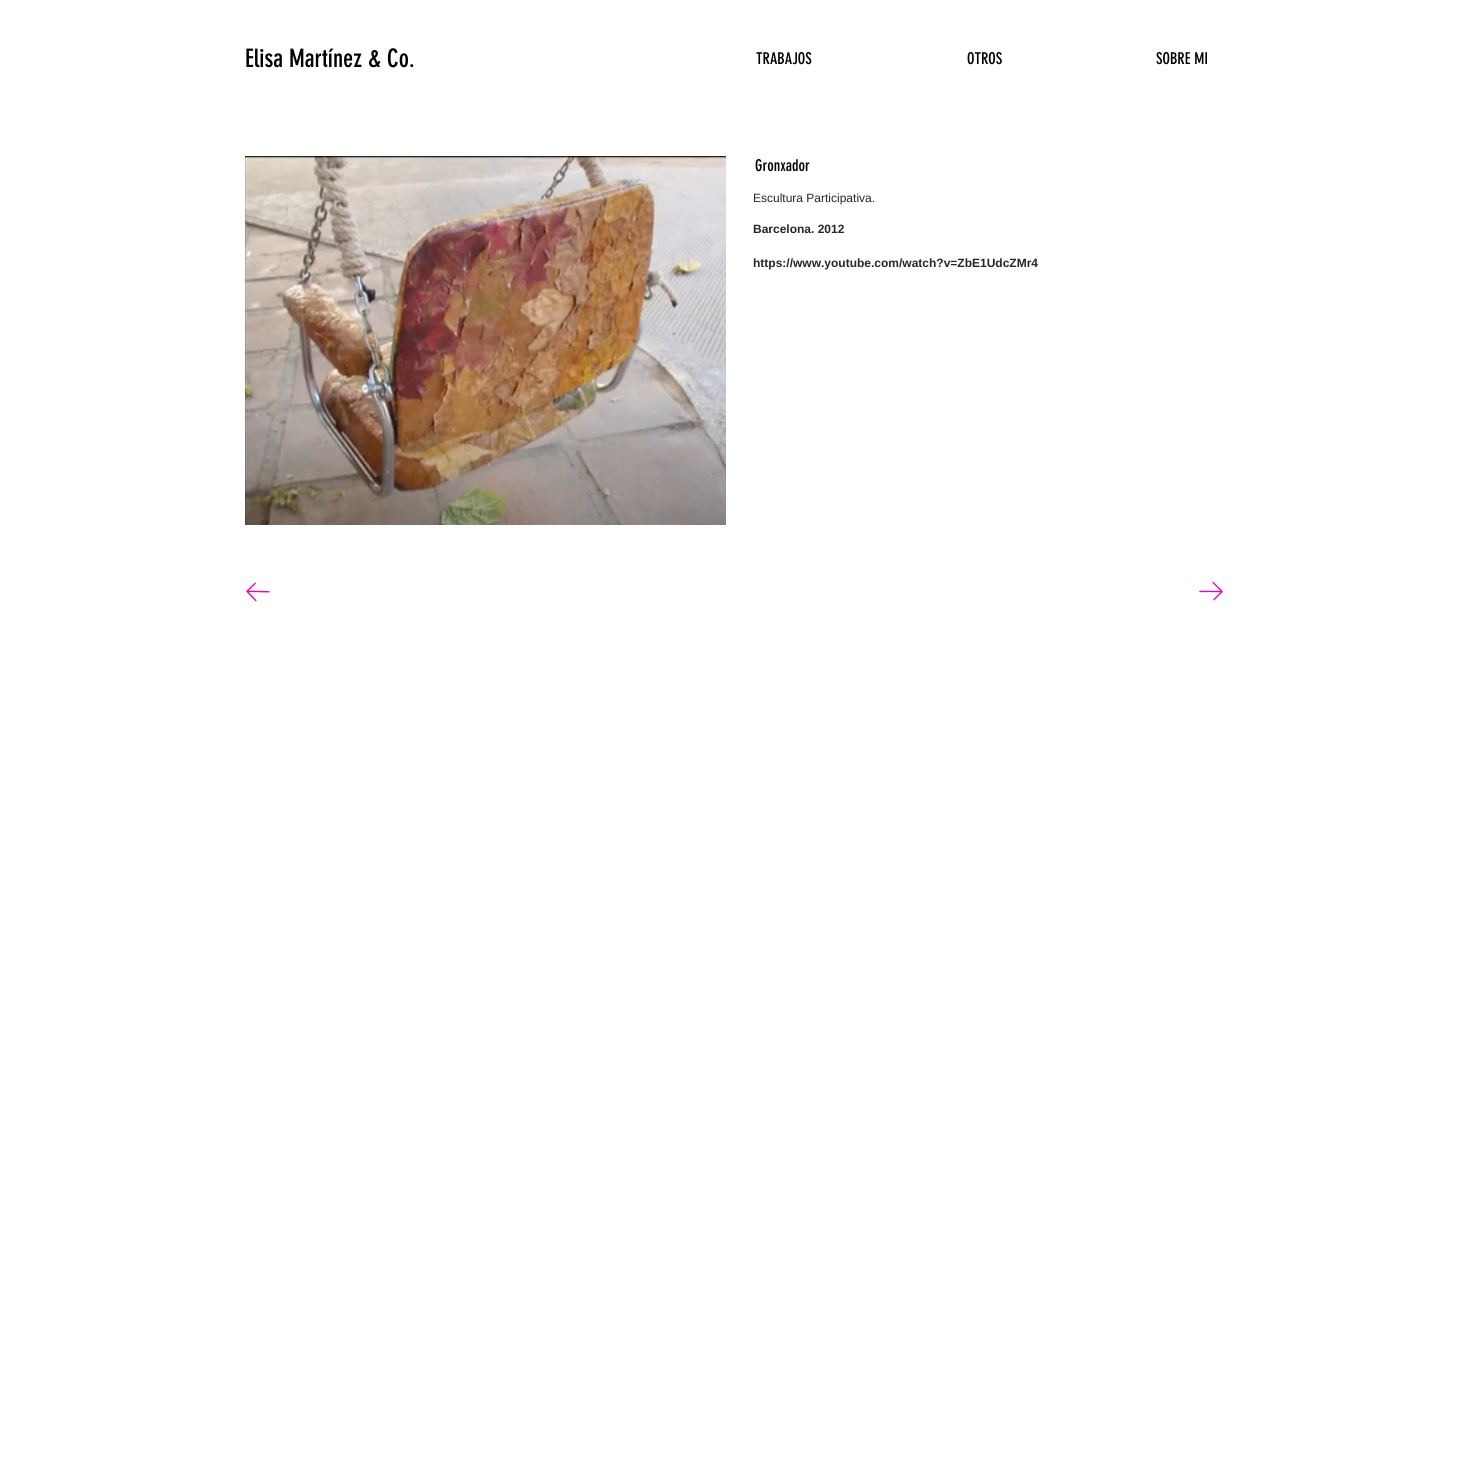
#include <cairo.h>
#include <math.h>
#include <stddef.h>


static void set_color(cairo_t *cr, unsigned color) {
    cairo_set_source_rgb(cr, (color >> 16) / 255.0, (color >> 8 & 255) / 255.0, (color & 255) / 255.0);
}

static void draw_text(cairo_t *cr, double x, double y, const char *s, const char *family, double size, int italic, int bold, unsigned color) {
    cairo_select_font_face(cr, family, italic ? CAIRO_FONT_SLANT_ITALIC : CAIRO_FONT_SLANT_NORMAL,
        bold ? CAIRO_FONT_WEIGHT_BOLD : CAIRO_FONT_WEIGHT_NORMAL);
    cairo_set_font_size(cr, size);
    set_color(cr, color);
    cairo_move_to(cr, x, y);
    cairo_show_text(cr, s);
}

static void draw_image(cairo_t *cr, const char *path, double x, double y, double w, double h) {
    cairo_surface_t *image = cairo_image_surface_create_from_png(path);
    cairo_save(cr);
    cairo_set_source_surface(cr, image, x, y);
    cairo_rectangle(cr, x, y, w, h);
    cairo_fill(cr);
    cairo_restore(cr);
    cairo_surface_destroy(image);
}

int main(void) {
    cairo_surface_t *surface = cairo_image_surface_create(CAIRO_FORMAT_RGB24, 1470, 1470);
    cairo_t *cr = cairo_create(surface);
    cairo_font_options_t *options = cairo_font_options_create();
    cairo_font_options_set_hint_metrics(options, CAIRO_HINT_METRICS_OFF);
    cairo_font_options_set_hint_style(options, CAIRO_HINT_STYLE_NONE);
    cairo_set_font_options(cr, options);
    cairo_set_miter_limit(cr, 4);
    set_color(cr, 0xFFFFFF);
    cairo_paint(cr);
    draw_text(cr, 245, 67, "Elisa Martínez & Co.", "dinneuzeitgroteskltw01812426", 25, 0, 0, 0x000000);
    draw_text(cr, 756, 64, "TRABAJOS", "dinneuzeitgroteskltw01812426", 16, 0, 0, 0x000000);
    draw_text(cr, 967, 64, "OTROS", "dinneuzeitgroteskltw01812426", 16, 0, 0, 0x000000);
    draw_text(cr, 1156, 64, "SOBRE MI", "dinneuzeitgroteskltw01812426", 16, 0, 0, 0x000000);
    draw_image(cr, "assets/img1.png", 245, 156, 481, 369);
    draw_text(cr, 755, 171, "Gronxador", "dinneuzeitgroteskltw01812426", 16, 0, 0, 0x000000);
    draw_text(cr, 753, 202, "Escultura Participativa.", "Liberation Sans", 12, 0, 0, 0x272727);
    draw_text(cr, 753, 233, "Barcelona. 2012", "Liberation Sans", 12, 0, 1, 0x272727);
    draw_text(cr, 753, 267, "https://www.youtube.com/watch?v=ZbE1UdcZMr4", "Liberation Sans", 12, 0, 1, 0x272727);
    draw_image(cr, "assets/img2.png", 246, 582, 24, 20);
    draw_image(cr, "assets/img3.png", 1199, 581, 24, 20);
    cairo_surface_write_to_png(surface, "output.png");
    cairo_font_options_destroy(options);
    cairo_destroy(cr);
    cairo_surface_destroy(surface);
    return 0;
}
